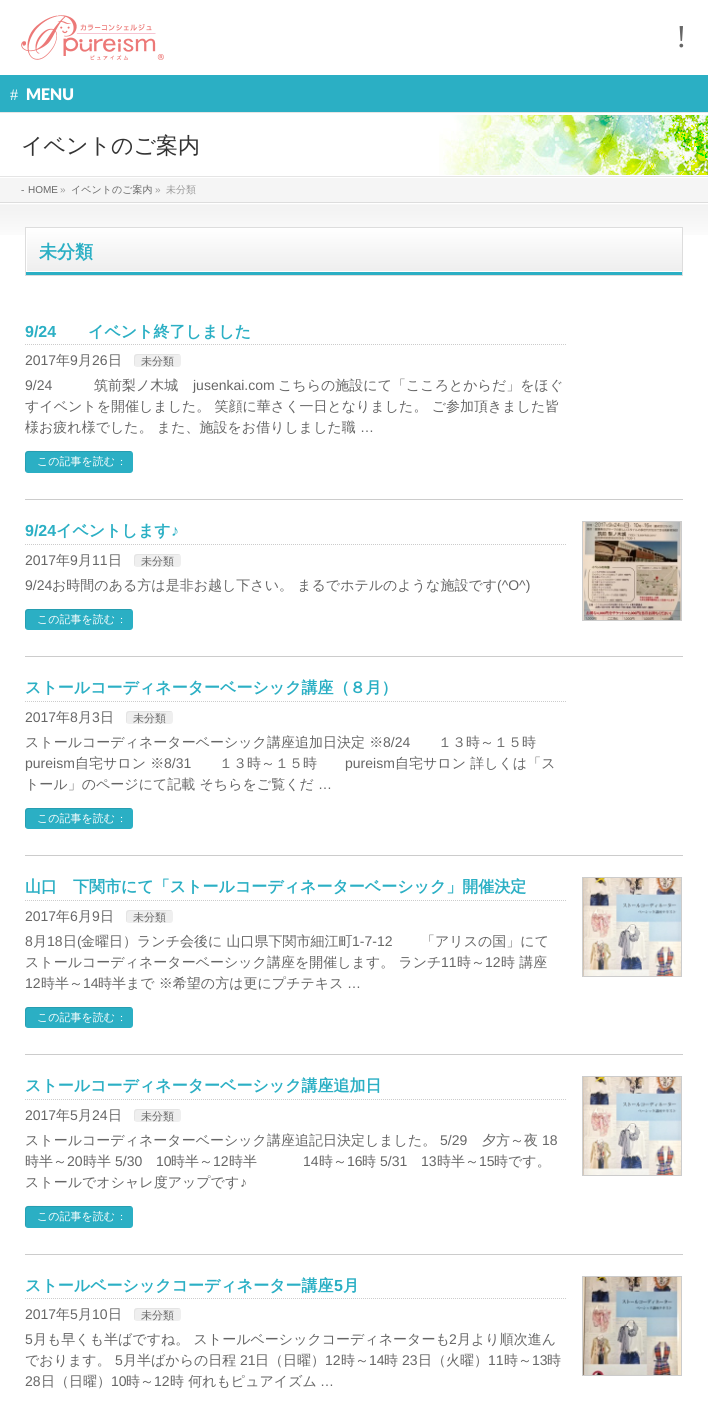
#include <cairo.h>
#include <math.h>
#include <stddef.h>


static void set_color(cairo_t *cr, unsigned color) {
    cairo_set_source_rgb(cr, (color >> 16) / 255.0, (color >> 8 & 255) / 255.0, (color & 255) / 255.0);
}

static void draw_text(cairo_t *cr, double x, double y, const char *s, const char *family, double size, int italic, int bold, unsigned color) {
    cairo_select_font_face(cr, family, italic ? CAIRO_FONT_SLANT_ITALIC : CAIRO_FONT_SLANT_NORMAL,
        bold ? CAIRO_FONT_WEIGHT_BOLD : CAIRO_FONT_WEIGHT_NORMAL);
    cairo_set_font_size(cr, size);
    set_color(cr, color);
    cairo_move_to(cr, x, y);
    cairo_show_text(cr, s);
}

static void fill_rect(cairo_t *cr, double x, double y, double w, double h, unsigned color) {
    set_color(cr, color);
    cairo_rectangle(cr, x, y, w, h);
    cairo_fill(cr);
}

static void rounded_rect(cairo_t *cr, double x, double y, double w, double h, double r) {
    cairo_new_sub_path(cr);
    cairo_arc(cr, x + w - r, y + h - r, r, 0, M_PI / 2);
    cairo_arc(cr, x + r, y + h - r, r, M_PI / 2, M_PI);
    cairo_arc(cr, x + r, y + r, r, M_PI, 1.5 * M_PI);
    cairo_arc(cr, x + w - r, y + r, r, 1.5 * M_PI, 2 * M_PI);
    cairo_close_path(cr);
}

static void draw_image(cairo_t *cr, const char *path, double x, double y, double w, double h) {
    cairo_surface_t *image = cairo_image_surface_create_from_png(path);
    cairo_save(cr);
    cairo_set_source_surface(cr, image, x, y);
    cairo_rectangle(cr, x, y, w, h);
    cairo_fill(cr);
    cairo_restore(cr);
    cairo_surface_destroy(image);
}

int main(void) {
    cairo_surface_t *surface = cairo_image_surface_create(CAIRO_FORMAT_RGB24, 708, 1402);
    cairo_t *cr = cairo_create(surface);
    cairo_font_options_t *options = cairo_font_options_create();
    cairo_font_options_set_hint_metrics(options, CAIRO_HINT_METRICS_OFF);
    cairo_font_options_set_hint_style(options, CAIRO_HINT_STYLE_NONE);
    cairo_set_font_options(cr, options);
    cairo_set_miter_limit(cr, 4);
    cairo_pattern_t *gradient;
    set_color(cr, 0xFFFFFF);
    cairo_paint(cr);
    draw_image(cr, "assets/img1.png", 21, 15, 143, 45);
    draw_text(cr, 676, 47, "!", "Liberation Serif", 32, 0, 0, 0x666666);
    fill_rect(cr, 0, 75, 708, 37, 0x2BAFC4);
    draw_text(cr, 10, 100, "#", "Liberation Serif", 16, 0, 0, 0xFFFFFF);
    draw_text(cr, 26, 100, "MENU", "Lato Black", 16, 0, 0, 0xFFFFFF);
    fill_rect(cr, 0, 112, 708, 1, 0xE5E5E5);
    fill_rect(cr, 0, 176, 708, 1, 0xE5E5E5);
    draw_image(cr, "assets/img2.png", 439, 115, 269, 60);
    draw_text(cr, 21, 153, "イベントのご案内", "WenQuanYi Zen Hei Medium", 22, 0, 0, 0x333333);
    fill_rect(cr, 0, 178, 708, 24, 0xF5F5F5);
    fill_rect(cr, 0, 202, 708, 1, 0xDDDDDD);
    draw_text(cr, 21, 193, "-", "Liberation Serif", 10, 0, 0, 0x666666);
    draw_text(cr, 28, 193, "HOME", "Liberation Sans", 10, 0, 0, 0x666666);
    draw_text(cr, 60, 193, "»", "Liberation Sans", 10, 0, 0, 0x999999);
    draw_text(cr, 71, 193, "イベントのご案内", "WenQuanYi Zen Hei Medium", 10, 0, 0, 0x666666);
    draw_text(cr, 155, 193, "»", "Liberation Sans", 10, 0, 0, 0x999999);
    draw_text(cr, 166, 193, "未分類", "WenQuanYi Zen Hei Medium", 10, 0, 0, 0x999999);
    draw_image(cr, "assets/img3.png", 0, 204, 708, 31);
    gradient = cairo_pattern_create_linear(354, 228, 354, 275);
    cairo_pattern_add_color_stop_rgba(gradient, 0, 1, 1, 1, 1);
    cairo_pattern_add_color_stop_rgba(gradient, 0.47, 0.965, 0.965, 0.965, 1);
    cairo_pattern_add_color_stop_rgba(gradient, 1, 0.929, 0.929, 0.929, 1);
    cairo_set_source(cr, gradient);
    cairo_pattern_destroy(gradient);
    cairo_rectangle(cr, 27, 229, 655, 42);
    cairo_fill(cr);
    cairo_save(cr);
    cairo_rectangle(cr, 26, 228, 656, 47);
    cairo_clip(cr);
    set_color(cr, 0xFFFFFF);
    cairo_set_fill_rule(cr, CAIRO_FILL_RULE_EVEN_ODD);
    cairo_new_path(cr);
    cairo_move_to(cr, -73, 129);
    cairo_line_to(cr, 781, 129);
    cairo_line_to(cr, 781, 374);
    cairo_line_to(cr, -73, 374);
    cairo_close_path(cr);
    cairo_move_to(cr, 27, 229);
    cairo_line_to(cr, 683, 229);
    cairo_line_to(cr, 683, 276);
    cairo_line_to(cr, 27, 276);
    cairo_close_path(cr);
    cairo_fill(cr);
    cairo_restore(cr);
    cairo_rectangle(cr, 25.5, 227.5, 657, 48);
    set_color(cr, 0xDDDDDD);
    cairo_set_line_width(cr, 1);
    cairo_stroke(cr);
    draw_text(cr, 39, 258, "未分類", "WenQuanYi Zen Hei", 18, 0, 1, 0x2BAFC4);
    fill_rect(cr, 26, 272, 656, 3, 0x2BAFC4);
    fill_rect(cr, 25, 499, 658, 1, 0xCCCCCC);
    cairo_new_path(cr);
    cairo_move_to(cr, 25, 344.5);
    cairo_line_to(cr, 566, 344.5);
    cairo_set_dash(cr, (double[]){1, 1}, 2, 0);
    cairo_stroke(cr);
    draw_text(cr, 25, 337, "9/24", "Liberation Sans", 16, 0, 1, 0x2BAFC4);
    draw_text(cr, 88, 337, "イベント終了しました", "WenQuanYi Zen Hei", 16, 0, 1, 0x2BAFC4);
    draw_text(cr, 25, 365, "2017", "Liberation Sans", 14, 0, 0, 0x666666);
    draw_text(cr, 56, 365, "年", "WenQuanYi Zen Hei Medium", 14, 0, 0, 0x666666);
    draw_text(cr, 70, 365, "9", "Liberation Sans", 14, 0, 0, 0x666666);
    draw_text(cr, 78, 365, "月", "WenQuanYi Zen Hei Medium", 14, 0, 0, 0x666666);
    draw_text(cr, 92, 365, "26", "Liberation Sans", 14, 0, 0, 0x666666);
    draw_text(cr, 108, 365, "日", "WenQuanYi Zen Hei Medium", 14, 0, 0, 0x666666);
    set_color(cr, 0xEFEFEF);
    rounded_rect(cr, 134, 354, 47, 13, 3);
    cairo_fill(cr);
    cairo_set_source_rgba(cr, 0, 0, 0, 0.05);
    cairo_new_path(cr);
    cairo_move_to(cr, 138, 355);
    cairo_line_to(cr, 180, 355);
    cairo_curve_to(cr, 180, 354, 179, 354, 178, 354);
    cairo_line_to(cr, 137, 354);
    cairo_curve_to(cr, 135, 354, 134, 355, 134, 357);
    cairo_line_to(cr, 134, 364);
    cairo_curve_to(cr, 134, 365, 134, 366, 135, 366);
    cairo_line_to(cr, 135, 362);
    cairo_curve_to(cr, 135, 360, 134, 355, 138, 355);
    cairo_close_path(cr);
    cairo_fill(cr);
    draw_text(cr, 141, 365, "未分類", "WenQuanYi Zen Hei Medium", 11, 0, 0, 0x666666);
    draw_text(cr, 25, 390, "9/24", "Liberation Sans", 14, 0, 0, 0x666666);
    draw_text(cr, 94, 390, "筑前梨ノ木城", "WenQuanYi Zen Hei Medium", 14, 0, 0, 0x666666);
    draw_text(cr, 193, 390, "jusenkai.com", "Liberation Sans", 14, 0, 0, 0x666666);
    draw_text(cr, 278, 390, "こちらの施設にて「こころとからだ」をほぐ", "WenQuanYi Zen Hei Medium", 14, 0, 0, 0x666666);
    draw_text(cr, 25, 411, "すイベントを開催しました。 笑顔に華さく一日となりました。 ご参加頂きました皆", "WenQuanYi Zen Hei Medium", 14, 0, 0, 0x666666);
    draw_text(cr, 25, 432, "様お疲れ様でした。 また、施設をお借りしました職", "WenQuanYi Zen Hei Medium", 14, 0, 0, 0x666666);
    draw_text(cr, 360, 432, "…", "Liberation Sans", 14, 0, 0, 0x666666);
    set_color(cr, 0x2BAFC4);
    rounded_rect(cr, 25, 451, 108, 22, 3);
    cairo_fill(cr);
    cairo_set_source_rgba(cr, 0, 0, 0, 0.1);
    cairo_new_path(cr);
    cairo_move_to(cr, 29, 452);
    cairo_line_to(cr, 132, 452);
    cairo_line_to(cr, 131, 451);
    cairo_line_to(cr, 45, 451);
    cairo_curve_to(cr, 23, 451, 25, 447, 25, 465);
    cairo_curve_to(cr, 25, 467, 24, 471, 26, 472);
    cairo_line_to(cr, 26, 463);
    cairo_curve_to(cr, 26, 460, 24, 452, 29, 452);
    cairo_close_path(cr);
    cairo_fill(cr);
    draw_text(cr, 37, 465, "この記事を読む", "WenQuanYi Zen Hei Medium", 11, 0, 0, 0xFFFFFF);
    draw_text(cr, 120, 465, ":", "Liberation Serif", 11, 0, 0, 0xFFFFFF);
    fill_rect(cr, 25, 656, 658, 1, 0xCCCCCC);
    cairo_new_path(cr);
    cairo_move_to(cr, 25, 544.5);
    cairo_line_to(cr, 566, 544.5);
    cairo_stroke(cr);
    draw_text(cr, 25, 536, "9/24", "Liberation Sans", 16, 0, 1, 0x2BAFC4);
    draw_text(cr, 56, 536, "イベントします", "WenQuanYi Zen Hei", 16, 0, 1, 0x2BAFC4);
    draw_text(cr, 171, 536, "♪", "Liberation Sans", 16, 0, 1, 0x2BAFC4);
    draw_text(cr, 25, 565, "2017", "Liberation Sans", 14, 0, 0, 0x666666);
    draw_text(cr, 56, 565, "年", "WenQuanYi Zen Hei Medium", 14, 0, 0, 0x666666);
    draw_text(cr, 70, 565, "9", "Liberation Sans", 14, 0, 0, 0x666666);
    draw_text(cr, 78, 565, "月", "WenQuanYi Zen Hei Medium", 14, 0, 0, 0x666666);
    draw_text(cr, 92, 565, "11", "Liberation Sans", 14, 0, 0, 0x666666);
    draw_text(cr, 108, 565, "日", "WenQuanYi Zen Hei Medium", 14, 0, 0, 0x666666);
    set_color(cr, 0xEFEFEF);
    rounded_rect(cr, 134, 554, 47, 13, 3);
    cairo_fill(cr);
    cairo_set_source_rgba(cr, 0, 0, 0, 0.05);
    cairo_new_path(cr);
    cairo_move_to(cr, 138, 555);
    cairo_line_to(cr, 180, 555);
    cairo_curve_to(cr, 180, 554, 179, 554, 178, 554);
    cairo_line_to(cr, 137, 554);
    cairo_curve_to(cr, 135, 554, 134, 555, 134, 557);
    cairo_line_to(cr, 134, 564);
    cairo_curve_to(cr, 134, 565, 134, 566, 135, 566);
    cairo_line_to(cr, 135, 562);
    cairo_curve_to(cr, 135, 560, 134, 555, 138, 555);
    cairo_close_path(cr);
    cairo_fill(cr);
    draw_text(cr, 141, 565, "未分類", "WenQuanYi Zen Hei Medium", 11, 0, 0, 0x666666);
    draw_text(cr, 25, 590, "9/24", "Liberation Sans", 14, 0, 0, 0x666666);
    draw_text(cr, 52, 590, "お時間のある方は是非お越し下さい。 まるでホテルのような施設です", "WenQuanYi Zen Hei Medium", 14, 0, 0, 0x666666);
    draw_text(cr, 497, 590, "(^O^)", "Liberation Sans", 14, 0, 0, 0x666666);
    set_color(cr, 0x2BAFC4);
    rounded_rect(cr, 25, 609, 108, 21, 3);
    cairo_fill(cr);
    cairo_set_source_rgba(cr, 0, 0, 0, 0.1);
    cairo_new_path(cr);
    cairo_move_to(cr, 29, 610);
    cairo_line_to(cr, 132, 610);
    cairo_curve_to(cr, 132, 609, 131, 609, 130, 609);
    cairo_line_to(cr, 28, 609);
    cairo_curve_to(cr, 26, 609, 25, 610, 25, 612);
    cairo_line_to(cr, 25, 627);
    cairo_curve_to(cr, 25, 628, 25, 629, 26, 629);
    cairo_line_to(cr, 26, 620);
    cairo_curve_to(cr, 26, 618, 24, 610, 29, 610);
    cairo_close_path(cr);
    cairo_fill(cr);
    draw_text(cr, 37, 623, "この記事を読む", "WenQuanYi Zen Hei Medium", 11, 0, 0, 0xFFFFFF);
    draw_text(cr, 120, 623, ":", "Liberation Serif", 11, 0, 0, 0xFFFFFF);
    cairo_rectangle(cr, 582.5, 521.5, 99, 99);
    set_color(cr, 0xCCCCCC);
    cairo_set_dash(cr, NULL, 0, 0);
    cairo_stroke(cr);
    draw_image(cr, "assets/img4.png", 583, 522, 98, 98);
    fill_rect(cr, 25, 855, 658, 1, 0xCCCCCC);
    cairo_new_path(cr);
    cairo_move_to(cr, 25, 701.5);
    cairo_line_to(cr, 566, 701.5);
    cairo_set_dash(cr, (double[]){1, 1}, 2, 0);
    cairo_stroke(cr);
    draw_text(cr, 25, 693, "ストールコーディネーターベーシック講座（８月）", "WenQuanYi Zen Hei", 16, 0, 1, 0x2BAFC4);
    draw_text(cr, 25, 722, "2017", "Liberation Sans", 14, 0, 0, 0x666666);
    draw_text(cr, 56, 722, "年", "WenQuanYi Zen Hei Medium", 14, 0, 0, 0x666666);
    draw_text(cr, 70, 722, "8", "Liberation Sans", 14, 0, 0, 0x666666);
    draw_text(cr, 78, 722, "月", "WenQuanYi Zen Hei Medium", 14, 0, 0, 0x666666);
    draw_text(cr, 92, 722, "3", "Liberation Sans", 14, 0, 0, 0x666666);
    draw_text(cr, 100, 722, "日", "WenQuanYi Zen Hei Medium", 14, 0, 0, 0x666666);
    set_color(cr, 0xEFEFEF);
    rounded_rect(cr, 126, 711, 47, 13, 3);
    cairo_fill(cr);
    cairo_set_source_rgba(cr, 0, 0, 0, 0.05);
    cairo_new_path(cr);
    cairo_move_to(cr, 130, 712);
    cairo_line_to(cr, 172, 712);
    cairo_curve_to(cr, 172, 711, 171, 711, 170, 711);
    cairo_line_to(cr, 129, 711);
    cairo_curve_to(cr, 127, 711, 126, 712, 126, 714);
    cairo_line_to(cr, 126, 721);
    cairo_curve_to(cr, 126, 722, 126, 723, 127, 723);
    cairo_line_to(cr, 127, 719);
    cairo_curve_to(cr, 127, 717, 126, 712, 130, 712);
    cairo_close_path(cr);
    cairo_fill(cr);
    draw_text(cr, 133, 722, "未分類", "WenQuanYi Zen Hei Medium", 11, 0, 0, 0x666666);
    draw_text(cr, 25, 747, "ストールコーディネーターベーシック講座追加日決定 ※", "WenQuanYi Zen Hei Medium", 14, 0, 0, 0x666666);
    draw_text(cr, 383, 747, "8/24", "Liberation Sans", 14, 0, 0, 0x666666);
    draw_text(cr, 438, 747, "１３時～１５時", "WenQuanYi Zen Hei Medium", 14, 0, 0, 0x666666);
    draw_text(cr, 25, 768, "pureism", "Liberation Sans", 14, 0, 0, 0x666666);
    draw_text(cr, 75, 768, "自宅サロン ※", "WenQuanYi Zen Hei Medium", 14, 0, 0, 0x666666);
    draw_text(cr, 164, 768, "8/31", "Liberation Sans", 14, 0, 0, 0x666666);
    draw_text(cr, 219, 768, "１３時～１５時", "WenQuanYi Zen Hei Medium", 14, 0, 0, 0x666666);
    draw_text(cr, 345, 768, "pureism", "Liberation Sans", 14, 0, 0, 0x666666);
    draw_text(cr, 395, 768, "自宅サロン 詳しくは「ス", "WenQuanYi Zen Hei Medium", 14, 0, 0, 0x666666);
    draw_text(cr, 25, 789, "トール」のページにて記載 そちらをご覧くだ", "WenQuanYi Zen Hei Medium", 14, 0, 0, 0x666666);
    draw_text(cr, 318, 789, "…", "Liberation Sans", 14, 0, 0, 0x666666);
    set_color(cr, 0x2BAFC4);
    rounded_rect(cr, 25, 808, 108, 21, 3);
    cairo_fill(cr);
    cairo_set_source_rgba(cr, 0, 0, 0, 0.1);
    cairo_new_path(cr);
    cairo_move_to(cr, 29, 809);
    cairo_line_to(cr, 132, 809);
    cairo_curve_to(cr, 132, 808, 131, 808, 130, 808);
    cairo_line_to(cr, 28, 808);
    cairo_curve_to(cr, 26, 808, 25, 809, 25, 811);
    cairo_line_to(cr, 25, 826);
    cairo_curve_to(cr, 25, 827, 25, 828, 26, 828);
    cairo_line_to(cr, 26, 820);
    cairo_curve_to(cr, 26, 817, 24, 809, 29, 809);
    cairo_close_path(cr);
    cairo_fill(cr);
    draw_text(cr, 37, 822, "この記事を読む", "WenQuanYi Zen Hei Medium", 11, 0, 0, 0xFFFFFF);
    draw_text(cr, 120, 822, ":", "Liberation Serif", 11, 0, 0, 0xFFFFFF);
    fill_rect(cr, 25, 1054, 658, 1, 0xCCCCCC);
    cairo_new_path(cr);
    cairo_move_to(cr, 25, 900.5);
    cairo_line_to(cr, 566, 900.5);
    cairo_stroke(cr);
    draw_text(cr, 25, 892, "山口　下関市にて「ストールコーディネーターベーシック」開催決定", "WenQuanYi Zen Hei", 16, 0, 1, 0x2BAFC4);
    draw_text(cr, 25, 921, "2017", "Liberation Sans", 14, 0, 0, 0x666666);
    draw_text(cr, 56, 921, "年", "WenQuanYi Zen Hei Medium", 14, 0, 0, 0x666666);
    draw_text(cr, 70, 921, "6", "Liberation Sans", 14, 0, 0, 0x666666);
    draw_text(cr, 78, 921, "月", "WenQuanYi Zen Hei Medium", 14, 0, 0, 0x666666);
    draw_text(cr, 92, 921, "9", "Liberation Sans", 14, 0, 0, 0x666666);
    draw_text(cr, 100, 921, "日", "WenQuanYi Zen Hei Medium", 14, 0, 0, 0x666666);
    set_color(cr, 0xEFEFEF);
    rounded_rect(cr, 126, 910, 47, 13, 3);
    cairo_fill(cr);
    cairo_set_source_rgba(cr, 0, 0, 0, 0.05);
    cairo_new_path(cr);
    cairo_move_to(cr, 130, 911);
    cairo_line_to(cr, 172, 911);
    cairo_curve_to(cr, 172, 910, 171, 910, 170, 910);
    cairo_line_to(cr, 129, 910);
    cairo_curve_to(cr, 127, 910, 126, 911, 126, 913);
    cairo_line_to(cr, 126, 920);
    cairo_curve_to(cr, 126, 921, 126, 922, 127, 922);
    cairo_line_to(cr, 127, 918);
    cairo_curve_to(cr, 127, 916, 126, 911, 130, 911);
    cairo_close_path(cr);
    cairo_fill(cr);
    draw_text(cr, 133, 921, "未分類", "WenQuanYi Zen Hei Medium", 11, 0, 0, 0x666666);
    draw_text(cr, 25, 946, "8", "Liberation Sans", 14, 0, 0, 0x666666);
    draw_text(cr, 33, 946, "月", "WenQuanYi Zen Hei Medium", 14, 0, 0, 0x666666);
    draw_text(cr, 47, 946, "18", "Liberation Sans", 14, 0, 0, 0x666666);
    draw_text(cr, 63, 946, "日", "WenQuanYi Zen Hei Medium", 14, 0, 0, 0x666666);
    draw_text(cr, 77, 946, "(", "Liberation Sans", 14, 0, 0, 0x666666);
    draw_text(cr, 81, 946, "金曜日）ランチ会後に 山口県下関市細江町", "WenQuanYi Zen Hei Medium", 14, 0, 0, 0x666666);
    draw_text(cr, 352, 946, "1-7-12", "Liberation Sans", 14, 0, 0, 0x666666);
    draw_text(cr, 421, 946, "「アリスの国」にて", "WenQuanYi Zen Hei Medium", 14, 0, 0, 0x666666);
    draw_text(cr, 25, 967, "ストールコーディネーターベーシック講座を開催します。 ランチ", "WenQuanYi Zen Hei Medium", 14, 0, 0, 0x666666);
    draw_text(cr, 441, 967, "11", "Liberation Sans", 14, 0, 0, 0x666666);
    draw_text(cr, 457, 967, "時～", "WenQuanYi Zen Hei Medium", 14, 0, 0, 0x666666);
    draw_text(cr, 485, 967, "12", "Liberation Sans", 14, 0, 0, 0x666666);
    draw_text(cr, 501, 967, "時 講座", "WenQuanYi Zen Hei Medium", 14, 0, 0, 0x666666);
    draw_text(cr, 25, 988, "12", "Liberation Sans", 14, 0, 0, 0x666666);
    draw_text(cr, 41, 988, "時半～", "WenQuanYi Zen Hei Medium", 14, 0, 0, 0x666666);
    draw_text(cr, 83, 988, "14", "Liberation Sans", 14, 0, 0, 0x666666);
    draw_text(cr, 98, 988, "時半まで ※希望の方は更にプチテキス", "WenQuanYi Zen Hei Medium", 14, 0, 0, 0x666666);
    draw_text(cr, 347, 988, "…", "Liberation Sans", 14, 0, 0, 0x666666);
    set_color(cr, 0x2BAFC4);
    rounded_rect(cr, 25, 1007, 108, 21, 3);
    cairo_fill(cr);
    cairo_set_source_rgba(cr, 0, 0, 0, 0.1);
    cairo_new_path(cr);
    cairo_move_to(cr, 29, 1008);
    cairo_line_to(cr, 132, 1008);
    cairo_curve_to(cr, 132, 1007, 131, 1007, 130, 1007);
    cairo_line_to(cr, 28, 1007);
    cairo_curve_to(cr, 26, 1007, 25, 1008, 25, 1010);
    cairo_line_to(cr, 25, 1025);
    cairo_curve_to(cr, 25, 1026, 25, 1027, 26, 1027);
    cairo_line_to(cr, 26, 1018);
    cairo_curve_to(cr, 26, 1016, 24, 1008, 29, 1008);
    cairo_close_path(cr);
    cairo_fill(cr);
    draw_text(cr, 37, 1021, "この記事を読む", "WenQuanYi Zen Hei Medium", 11, 0, 0, 0xFFFFFF);
    draw_text(cr, 120, 1021, ":", "Liberation Serif", 11, 0, 0, 0xFFFFFF);
    cairo_rectangle(cr, 582.5, 877.5, 99, 99);
    set_color(cr, 0xCCCCCC);
    cairo_set_dash(cr, NULL, 0, 0);
    cairo_stroke(cr);
    draw_image(cr, "assets/img5.png", 583, 878, 98, 98);
    fill_rect(cr, 25, 1254, 658, 1, 0xCCCCCC);
    cairo_new_path(cr);
    cairo_move_to(cr, 25, 1099.5);
    cairo_line_to(cr, 566, 1099.5);
    cairo_set_dash(cr, (double[]){1, 1}, 2, 0);
    cairo_stroke(cr);
    draw_text(cr, 25, 1091, "ストールコーディネーターベーシック講座追加日", "WenQuanYi Zen Hei", 16, 0, 1, 0x2BAFC4);
    draw_text(cr, 25, 1120, "2017", "Liberation Sans", 14, 0, 0, 0x666666);
    draw_text(cr, 56, 1120, "年", "WenQuanYi Zen Hei Medium", 14, 0, 0, 0x666666);
    draw_text(cr, 70, 1120, "5", "Liberation Sans", 14, 0, 0, 0x666666);
    draw_text(cr, 78, 1120, "月", "WenQuanYi Zen Hei Medium", 14, 0, 0, 0x666666);
    draw_text(cr, 92, 1120, "24", "Liberation Sans", 14, 0, 0, 0x666666);
    draw_text(cr, 108, 1120, "日", "WenQuanYi Zen Hei Medium", 14, 0, 0, 0x666666);
    set_color(cr, 0xEFEFEF);
    rounded_rect(cr, 134, 1109, 47, 13, 3);
    cairo_fill(cr);
    cairo_set_source_rgba(cr, 0, 0, 0, 0.05);
    cairo_new_path(cr);
    cairo_move_to(cr, 138, 1110);
    cairo_line_to(cr, 180, 1110);
    cairo_curve_to(cr, 180, 1109, 179, 1109, 178, 1109);
    cairo_line_to(cr, 137, 1109);
    cairo_curve_to(cr, 135, 1109, 134, 1110, 134, 1112);
    cairo_line_to(cr, 134, 1119);
    cairo_curve_to(cr, 134, 1120, 134, 1121, 135, 1121);
    cairo_line_to(cr, 135, 1117);
    cairo_curve_to(cr, 135, 1115, 134, 1110, 138, 1110);
    cairo_close_path(cr);
    cairo_fill(cr);
    draw_text(cr, 141, 1120, "未分類", "WenQuanYi Zen Hei Medium", 11, 0, 0, 0x666666);
    draw_text(cr, 25, 1145, "ストールコーディネーターベーシック講座追記日決定しました。", "WenQuanYi Zen Hei Medium", 14, 0, 0, 0x666666);
    draw_text(cr, 440, 1145, "5/29", "Liberation Sans", 14, 0, 0, 0x666666);
    draw_text(cr, 482, 1145, "夕方～夜", "WenQuanYi Zen Hei Medium", 14, 0, 0, 0x666666);
    draw_text(cr, 542, 1145, "18", "Liberation Sans", 14, 0, 0, 0x666666);
    draw_text(cr, 25, 1166, "時半～", "WenQuanYi Zen Hei Medium", 14, 0, 0, 0x666666);
    draw_text(cr, 67, 1166, "20", "Liberation Sans", 14, 0, 0, 0x666666);
    draw_text(cr, 83, 1166, "時半", "WenQuanYi Zen Hei Medium", 14, 0, 0, 0x666666);
    draw_text(cr, 115, 1166, "5/30", "Liberation Sans", 14, 0, 0, 0x666666);
    draw_text(cr, 156, 1166, "10", "Liberation Sans", 14, 0, 0, 0x666666);
    draw_text(cr, 171, 1166, "時半～", "WenQuanYi Zen Hei Medium", 14, 0, 0, 0x666666);
    draw_text(cr, 213, 1166, "12", "Liberation Sans", 14, 0, 0, 0x666666);
    draw_text(cr, 229, 1166, "時半", "WenQuanYi Zen Hei Medium", 14, 0, 0, 0x666666);
    draw_text(cr, 303, 1166, "14", "Liberation Sans", 14, 0, 0, 0x666666);
    draw_text(cr, 319, 1166, "時～", "WenQuanYi Zen Hei Medium", 14, 0, 0, 0x666666);
    draw_text(cr, 347, 1166, "16", "Liberation Sans", 14, 0, 0, 0x666666);
    draw_text(cr, 362, 1166, "時", "WenQuanYi Zen Hei Medium", 14, 0, 0, 0x666666);
    draw_text(cr, 380, 1166, "5/31", "Liberation Sans", 14, 0, 0, 0x666666);
    draw_text(cr, 421, 1166, "13", "Liberation Sans", 14, 0, 0, 0x666666);
    draw_text(cr, 437, 1166, "時半～", "WenQuanYi Zen Hei Medium", 14, 0, 0, 0x666666);
    draw_text(cr, 479, 1166, "15", "Liberation Sans", 14, 0, 0, 0x666666);
    draw_text(cr, 494, 1166, "時です。", "WenQuanYi Zen Hei Medium", 14, 0, 0, 0x666666);
    draw_text(cr, 25, 1187, "ストールでオシャレ度アップです", "WenQuanYi Zen Hei Medium", 14, 0, 0, 0x666666);
    draw_text(cr, 240, 1187, "♪", "Liberation Sans", 14, 0, 0, 0x666666);
    set_color(cr, 0x2BAFC4);
    rounded_rect(cr, 25, 1206, 108, 22, 3);
    cairo_fill(cr);
    cairo_set_source_rgba(cr, 0, 0, 0, 0.1);
    cairo_new_path(cr);
    cairo_move_to(cr, 29, 1207);
    cairo_line_to(cr, 132, 1207);
    cairo_line_to(cr, 131, 1206);
    cairo_line_to(cr, 45, 1206);
    cairo_curve_to(cr, 23, 1206, 25, 1202, 25, 1220);
    cairo_curve_to(cr, 25, 1222, 24, 1226, 26, 1227);
    cairo_line_to(cr, 26, 1218);
    cairo_curve_to(cr, 26, 1215, 24, 1207, 29, 1207);
    cairo_close_path(cr);
    cairo_fill(cr);
    draw_text(cr, 37, 1220, "この記事を読む", "WenQuanYi Zen Hei Medium", 11, 0, 0, 0xFFFFFF);
    draw_text(cr, 120, 1220, ":", "Liberation Serif", 11, 0, 0, 0xFFFFFF);
    cairo_rectangle(cr, 582.5, 1076.5, 99, 99);
    set_color(cr, 0xCCCCCC);
    cairo_set_dash(cr, NULL, 0, 0);
    cairo_stroke(cr);
    draw_image(cr, "assets/img6.png", 583, 1077, 98, 98);
    cairo_new_path(cr);
    cairo_move_to(cr, 25, 1298.5);
    cairo_line_to(cr, 566, 1298.5);
    cairo_set_dash(cr, (double[]){1, 1}, 2, 0);
    cairo_stroke(cr);
    draw_text(cr, 25, 1291, "ストールベーシックコーディネーター講座", "WenQuanYi Zen Hei", 16, 0, 1, 0x2BAFC4);
    draw_text(cr, 334, 1291, "5", "Liberation Sans", 16, 0, 1, 0x2BAFC4);
    draw_text(cr, 343, 1291, "月", "WenQuanYi Zen Hei", 16, 0, 1, 0x2BAFC4);
    draw_text(cr, 25, 1319, "2017", "Liberation Sans", 14, 0, 0, 0x666666);
    draw_text(cr, 56, 1319, "年", "WenQuanYi Zen Hei Medium", 14, 0, 0, 0x666666);
    draw_text(cr, 70, 1319, "5", "Liberation Sans", 14, 0, 0, 0x666666);
    draw_text(cr, 78, 1319, "月", "WenQuanYi Zen Hei Medium", 14, 0, 0, 0x666666);
    draw_text(cr, 92, 1319, "10", "Liberation Sans", 14, 0, 0, 0x666666);
    draw_text(cr, 108, 1319, "日", "WenQuanYi Zen Hei Medium", 14, 0, 0, 0x666666);
    set_color(cr, 0xEFEFEF);
    rounded_rect(cr, 134, 1308, 47, 13, 3);
    cairo_fill(cr);
    cairo_set_source_rgba(cr, 0, 0, 0, 0.05);
    cairo_new_path(cr);
    cairo_move_to(cr, 138, 1309);
    cairo_line_to(cr, 180, 1309);
    cairo_curve_to(cr, 180, 1308, 179, 1308, 178, 1308);
    cairo_line_to(cr, 137, 1308);
    cairo_curve_to(cr, 135, 1308, 134, 1309, 134, 1311);
    cairo_line_to(cr, 134, 1318);
    cairo_curve_to(cr, 134, 1319, 134, 1320, 135, 1320);
    cairo_line_to(cr, 135, 1316);
    cairo_curve_to(cr, 135, 1314, 134, 1309, 138, 1309);
    cairo_close_path(cr);
    cairo_fill(cr);
    draw_text(cr, 141, 1319, "未分類", "WenQuanYi Zen Hei Medium", 11, 0, 0, 0x666666);
    draw_text(cr, 25, 1344, "5", "Liberation Sans", 14, 0, 0, 0x666666);
    draw_text(cr, 33, 1344, "月も早くも半ばですね。 ストールベーシックコーディネーターも", "WenQuanYi Zen Hei Medium", 14, 0, 0, 0x666666);
    draw_text(cr, 449, 1344, "2", "Liberation Sans", 14, 0, 0, 0x666666);
    draw_text(cr, 457, 1344, "月より順次進ん", "WenQuanYi Zen Hei Medium", 14, 0, 0, 0x666666);
    draw_text(cr, 25, 1365, "でおります。", "WenQuanYi Zen Hei Medium", 14, 0, 0, 0x666666);
    draw_text(cr, 115, 1365, "5", "Liberation Sans", 14, 0, 0, 0x666666);
    draw_text(cr, 123, 1365, "月半ばからの日程", "WenQuanYi Zen Hei Medium", 14, 0, 0, 0x666666);
    draw_text(cr, 240, 1365, "21", "Liberation Sans", 14, 0, 0, 0x666666);
    draw_text(cr, 255, 1365, "日（日曜）", "WenQuanYi Zen Hei Medium", 14, 0, 0, 0x666666);
    draw_text(cr, 325, 1365, "12", "Liberation Sans", 14, 0, 0, 0x666666);
    draw_text(cr, 341, 1365, "時～", "WenQuanYi Zen Hei Medium", 14, 0, 0, 0x666666);
    draw_text(cr, 369, 1365, "14", "Liberation Sans", 14, 0, 0, 0x666666);
    draw_text(cr, 384, 1365, "時", "WenQuanYi Zen Hei Medium", 14, 0, 0, 0x666666);
    draw_text(cr, 402, 1365, "23", "Liberation Sans", 14, 0, 0, 0x666666);
    draw_text(cr, 418, 1365, "日（火曜）", "WenQuanYi Zen Hei Medium", 14, 0, 0, 0x666666);
    draw_text(cr, 488, 1365, "11", "Liberation Sans", 14, 0, 0, 0x666666);
    draw_text(cr, 504, 1365, "時～", "WenQuanYi Zen Hei Medium", 14, 0, 0, 0x666666);
    draw_text(cr, 532, 1365, "13", "Liberation Sans", 14, 0, 0, 0x666666);
    draw_text(cr, 547, 1365, "時", "WenQuanYi Zen Hei Medium", 14, 0, 0, 0x666666);
    draw_text(cr, 25, 1386, "28", "Liberation Sans", 14, 0, 0, 0x666666);
    draw_text(cr, 41, 1386, "日（日曜）", "WenQuanYi Zen Hei Medium", 14, 0, 0, 0x666666);
    draw_text(cr, 111, 1386, "10", "Liberation Sans", 14, 0, 0, 0x666666);
    draw_text(cr, 126, 1386, "時～", "WenQuanYi Zen Hei Medium", 14, 0, 0, 0x666666);
    draw_text(cr, 154, 1386, "12", "Liberation Sans", 14, 0, 0, 0x666666);
    draw_text(cr, 170, 1386, "時 何れもピュアイズム", "WenQuanYi Zen Hei Medium", 14, 0, 0, 0x666666);
    draw_text(cr, 320, 1386, "…", "Liberation Sans", 14, 0, 0, 0x666666);
    cairo_rectangle(cr, 582.5, 1276.5, 99, 99);
    set_color(cr, 0xCCCCCC);
    cairo_set_dash(cr, NULL, 0, 0);
    cairo_stroke(cr);
    draw_image(cr, "assets/img7.png", 583, 1277, 98, 98);
    cairo_surface_write_to_png(surface, "output.png");
    cairo_font_options_destroy(options);
    cairo_destroy(cr);
    cairo_surface_destroy(surface);
    return 0;
}
